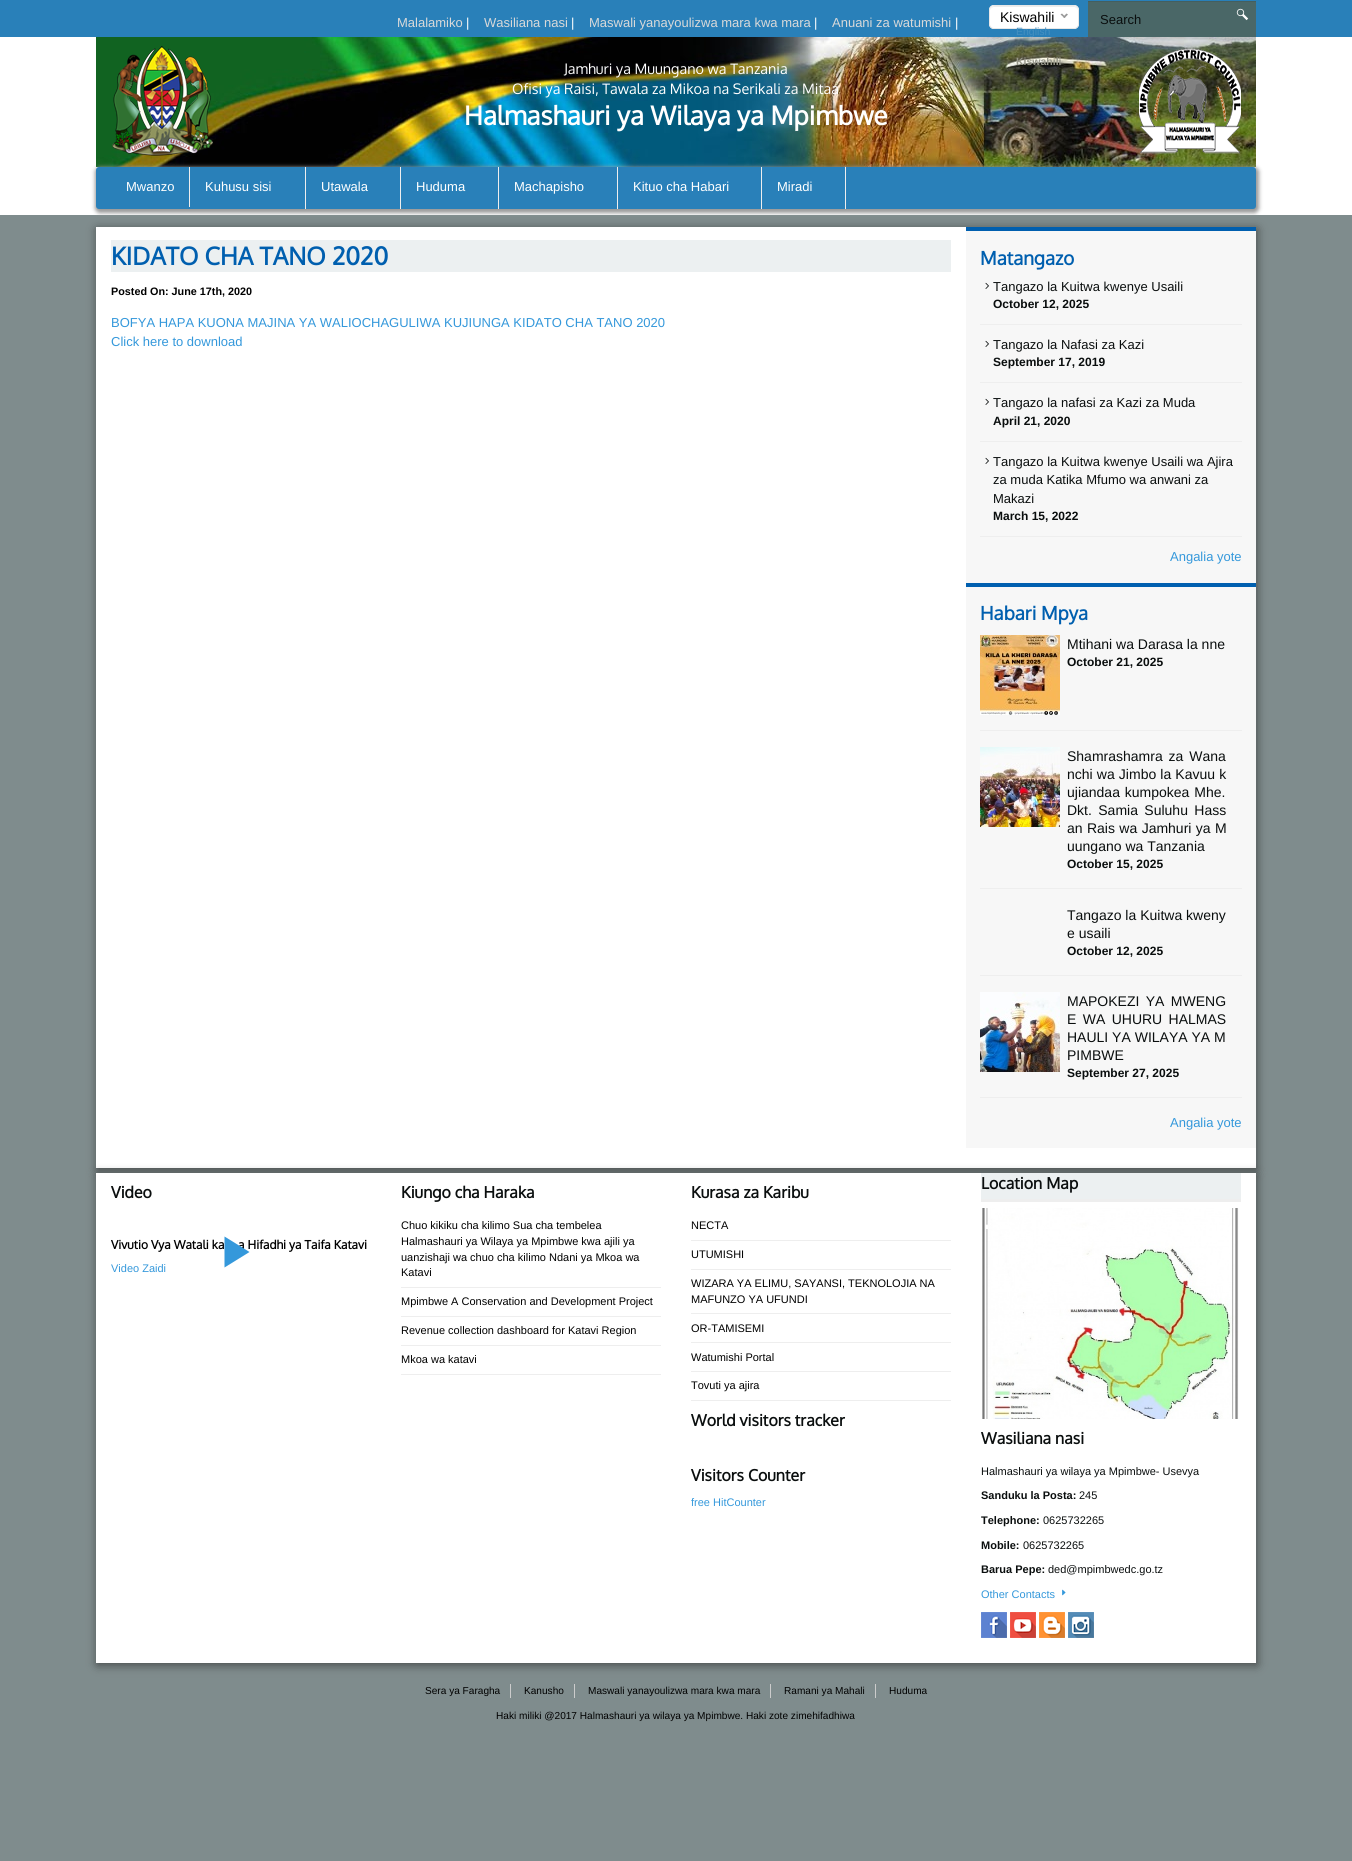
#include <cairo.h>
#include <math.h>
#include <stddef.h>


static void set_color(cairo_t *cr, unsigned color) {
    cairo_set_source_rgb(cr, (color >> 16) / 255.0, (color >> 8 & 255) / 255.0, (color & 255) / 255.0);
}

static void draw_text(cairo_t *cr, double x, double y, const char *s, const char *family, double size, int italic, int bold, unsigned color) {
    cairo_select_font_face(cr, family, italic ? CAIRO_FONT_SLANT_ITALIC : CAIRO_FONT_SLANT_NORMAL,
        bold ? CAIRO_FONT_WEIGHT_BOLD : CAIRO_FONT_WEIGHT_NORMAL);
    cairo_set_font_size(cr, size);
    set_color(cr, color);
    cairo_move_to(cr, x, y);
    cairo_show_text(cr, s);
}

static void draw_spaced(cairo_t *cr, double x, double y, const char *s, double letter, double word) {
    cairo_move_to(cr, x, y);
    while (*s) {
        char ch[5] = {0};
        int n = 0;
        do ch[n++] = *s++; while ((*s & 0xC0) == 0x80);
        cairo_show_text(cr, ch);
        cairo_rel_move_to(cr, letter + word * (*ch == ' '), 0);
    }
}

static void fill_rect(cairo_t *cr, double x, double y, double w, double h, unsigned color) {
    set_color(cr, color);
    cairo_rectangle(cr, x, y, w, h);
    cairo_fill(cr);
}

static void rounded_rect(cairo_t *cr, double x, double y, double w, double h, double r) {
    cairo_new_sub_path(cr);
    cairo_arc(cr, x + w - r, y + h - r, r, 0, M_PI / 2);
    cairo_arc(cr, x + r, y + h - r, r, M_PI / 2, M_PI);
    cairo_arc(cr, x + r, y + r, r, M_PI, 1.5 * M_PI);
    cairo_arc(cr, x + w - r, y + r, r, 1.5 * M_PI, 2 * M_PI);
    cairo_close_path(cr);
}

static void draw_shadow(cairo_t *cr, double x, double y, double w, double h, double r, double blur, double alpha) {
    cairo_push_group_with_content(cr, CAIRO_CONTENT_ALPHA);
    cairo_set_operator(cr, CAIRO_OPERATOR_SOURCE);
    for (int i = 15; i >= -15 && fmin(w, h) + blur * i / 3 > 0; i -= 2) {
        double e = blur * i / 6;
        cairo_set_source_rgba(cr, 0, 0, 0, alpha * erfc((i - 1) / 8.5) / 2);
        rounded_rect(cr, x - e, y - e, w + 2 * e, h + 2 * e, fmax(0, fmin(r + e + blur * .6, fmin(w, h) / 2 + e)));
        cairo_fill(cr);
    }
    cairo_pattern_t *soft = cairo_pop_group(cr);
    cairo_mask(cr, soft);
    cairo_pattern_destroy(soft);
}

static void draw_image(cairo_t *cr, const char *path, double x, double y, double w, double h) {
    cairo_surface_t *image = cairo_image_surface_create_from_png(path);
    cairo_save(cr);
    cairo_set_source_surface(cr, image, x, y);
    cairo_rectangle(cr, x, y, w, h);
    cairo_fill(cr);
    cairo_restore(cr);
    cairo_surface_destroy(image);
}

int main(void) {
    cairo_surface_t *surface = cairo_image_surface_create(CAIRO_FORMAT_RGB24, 1352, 1861);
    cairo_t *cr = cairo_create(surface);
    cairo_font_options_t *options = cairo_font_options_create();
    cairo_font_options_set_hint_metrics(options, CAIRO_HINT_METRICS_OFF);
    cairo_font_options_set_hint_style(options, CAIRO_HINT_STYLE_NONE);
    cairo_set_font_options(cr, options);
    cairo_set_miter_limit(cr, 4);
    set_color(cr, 0x7F8C8D);
    cairo_paint(cr);
    fill_rect(cr, 0, 0, 1352, 37, 0x2980B9);
    draw_text(cr, 397, 27, "Malalamiko", "Liberation Sans", 13, 0, 0, 0xD9D9D9);
    draw_text(cr, 466, 27, "|", "Liberation Sans", 13, 0, 0, 0xFFFFFF);
    draw_text(cr, 484, 27, "Wasiliana nasi", "Liberation Sans", 13, 0, 0, 0xD9D9D9);
    draw_text(cr, 571, 27, "|", "Liberation Sans", 13, 0, 0, 0xFFFFFF);
    draw_text(cr, 589, 27, "Maswali yanayoulizwa mara kwa mara", "Liberation Sans", 13, 0, 0, 0xD9D9D9);
    draw_text(cr, 814, 27, "|", "Liberation Sans", 13, 0, 0, 0xFFFFFF);
    draw_text(cr, 832, 27, "Anuani za watumishi", "Liberation Sans", 13, 0, 0, 0xD9D9D9);
    draw_text(cr, 955, 27, "|", "Liberation Sans", 13, 0, 0, 0xFFFFFF);
    rounded_rect(cr, 989, 5, 90, 24, 5);
    cairo_fill(cr);
    set_color(cr, 0xECECEC);
    cairo_new_path(cr);
    cairo_move_to(cr, 994, 7);
    cairo_line_to(cr, 1074, 7);
    cairo_curve_to(cr, 1076, 7, 1078, 9, 1078, 11);
    cairo_curve_to(cr, 1078, 3, 1065, 6, 1061, 6);
    cairo_line_to(cr, 1007, 6);
    cairo_curve_to(cr, 1003, 6, 990, 3, 990, 11);
    cairo_curve_to(cr, 990, 9, 992, 7, 994, 7);
    cairo_close_path(cr);
    cairo_fill(cr);
    rounded_rect(cr, 989.5, 5.5, 89, 23, 4.5);
    set_color(cr, 0xE8E8E8);
    cairo_set_line_width(cr, 1);
    cairo_stroke(cr);
    draw_text(cr, 1000, 22, "Kiswahili", "Liberation Sans", 14, 0, 0, 0x000000);
    set_color(cr, 0x999999);
    cairo_new_path(cr);
    cairo_move_to(cr, 1066.5, 13.5);
    cairo_line_to(cr, 1068, 14.5);
    cairo_line_to(cr, 1064.5, 18);
    cairo_line_to(cr, 1063, 17);
    cairo_close_path(cr);
    cairo_fill(cr);
    cairo_new_path(cr);
    cairo_move_to(cr, 1062, 13.5);
    cairo_line_to(cr, 1065.5, 17);
    cairo_line_to(cr, 1064.5, 18);
    cairo_line_to(cr, 1060.5, 14.5);
    cairo_close_path(cr);
    cairo_fill(cr);
    fill_rect(cr, 0, 37, 1352, 178, 0xFFFFFF);
    draw_image(cr, "assets/img2.png", 96, 37, 1160, 130);
    draw_text(cr, 1016, 35, "English", "Liberation Sans", 10.5, 0, 0, 0x448FC0);
    draw_text(cr, 1016, 65, "Kiswahili", "Liberation Sans", 10.5, 0, 1, 0x97978A);
    fill_rect(cr, 1088, 2, 168, 35, 0x4A6767);
    fill_rect(cr, 1088, 1, 168, 1, 0x445F5F);
    draw_text(cr, 1100, 24, "Search", "Liberation Sans", 13, 0, 0, 0x0A0E0E);
    draw_image(cr, "assets/img1.png", 1236, 8, 13, 13);
    draw_image(cr, "assets/img3.png", 112, 46, 101, 110);
    draw_text(cr, 564, 74, "Jamhuri ya Muungano wa Tanzania", "Oxygen", 14.4, 0, 0, 0xFFFFFF);
    draw_text(cr, 512, 94, "Ofisi ya Raisi, Tawala za Mikoa na Serikali za Mitaa", "Oxygen", 14.4, 0, 0, 0xFFFFFF);
    draw_text(cr, 464, 125, "Halmashauri ya Wilaya ya Mpimbwe", "Oxygen", 26, 0, 1, 0xFFFFFF);
    draw_image(cr, "assets/img4.png", 1139, 47, 102, 107);
    set_color(cr, 0x999999);
    draw_shadow(cr, 95, 167, 1164, 46, 5, 2, 1);
    set_color(cr, 0x2980B9);
    rounded_rect(cr, 96, 167, 1160, 42, 3);
    cairo_fill(cr);
    fill_rect(cr, 189, 167, 1, 40, 0xEEEEEE);
    draw_text(cr, 126, 191, "Mwanzo", "Liberation Sans", 13, 0, 0, 0xFFFFFF);
    fill_rect(cr, 305, 167, 1, 42, 0xEEEEEE);
    draw_text(cr, 205, 191, "Kuhusu sisi", "Liberation Sans", 13, 0, 0, 0xFFFFFF);
    fill_rect(cr, 400, 167, 1, 42, 0xEEEEEE);
    draw_text(cr, 321, 191, "Utawala", "Liberation Sans", 13, 0, 0, 0xFFFFFF);
    fill_rect(cr, 498, 167, 1, 42, 0xEEEEEE);
    draw_text(cr, 416, 191, "Huduma", "Liberation Sans", 13, 0, 0, 0xFFFFFF);
    fill_rect(cr, 617, 167, 1, 42, 0xEEEEEE);
    draw_text(cr, 514, 191, "Machapisho", "Liberation Sans", 13, 0, 0, 0xFFFFFF);
    fill_rect(cr, 761, 167, 1, 42, 0xEEEEEE);
    draw_text(cr, 633, 191, "Kituo cha Habari", "Liberation Sans", 13, 0, 0, 0xFFFFFF);
    fill_rect(cr, 845, 167, 1, 42, 0xEEEEEE);
    draw_text(cr, 777, 191, "Miradi", "Liberation Sans", 13, 0, 0, 0xFFFFFF);
    set_color(cr, 0x323232);
    draw_shadow(cr, 97, 229, 1160, 941, 0, 5, 0.75);
    fill_rect(cr, 96, 227, 1160, 941, 0xFFFFFF);
    fill_rect(cr, 111, 240, 840, 32, 0xECF0F1);
    draw_text(cr, 111, 265, "KIDATO CHA TANO 2020", "Oxygen", 24.5, 0, 1, 0x005FAF);
    draw_text(cr, 111, 295, "Posted On: June 17th, 2020", "Liberation Sans", 10.8, 0, 1, 0x000000);
    draw_text(cr, 111, 327, "BOFYA HAPA KUONA MAJINA YA WALIOCHAGULIWA KUJIUNGA KIDATO CHA TANO 2020", "Liberation Sans", 13, 0, 0, 0x3498DB);
    draw_text(cr, 111, 346, "Click here to download", "Liberation Sans", 13, 0, 0, 0x3498DB);
    fill_rect(cr, 966, 231, 290, 917, 0xF7F7F7);
    fill_rect(cr, 966, 227, 290, 4, 0x005FAF);
    draw_text(cr, 980, 265, "Matangazo", "Oxygen", 18.75, 0, 1, 0x005FAF);
    fill_rect(cr, 980, 324, 262, 1, 0xEEEEEE);
    draw_image(cr, "assets/img5.png", 985, 282, 4, 7);
    draw_text(cr, 993, 291, "Tangazo la Kuitwa kwenye Usaili", "Liberation Sans", 13, 0, 0, 0x0A0E0E);
    draw_text(cr, 993, 308, "October 12, 2025", "Liberation Sans", 12, 0, 1, 0x0A0E0E);
    fill_rect(cr, 980, 382, 262, 1, 0xEEEEEE);
    draw_image(cr, "assets/img5.png", 985, 340, 4, 7);
    draw_text(cr, 993, 349, "Tangazo la Nafasi za Kazi", "Liberation Sans", 13, 0, 0, 0x0A0E0E);
    draw_text(cr, 993, 366, "September 17, 2019", "Liberation Sans", 12, 0, 1, 0x0A0E0E);
    fill_rect(cr, 980, 441, 262, 1, 0xEEEEEE);
    draw_image(cr, "assets/img5.png", 985, 398, 4, 7);
    draw_text(cr, 993, 407, "Tangazo la nafasi za Kazi za Muda", "Liberation Sans", 13, 0, 0, 0x0A0E0E);
    draw_text(cr, 993, 425, "April 21, 2020", "Liberation Sans", 12, 0, 1, 0x0A0E0E);
    fill_rect(cr, 980, 536, 262, 1, 0xEEEEEE);
    draw_image(cr, "assets/img5.png", 985, 457, 4, 7);
    draw_text(cr, 993, 466, "Tangazo la Kuitwa kwenye Usaili wa Ajira", "Liberation Sans", 13, 0, 0, 0x0A0E0E);
    draw_text(cr, 993, 484, "za muda Katika Mfumo wa anwani za", "Liberation Sans", 13, 0, 0, 0x0A0E0E);
    draw_text(cr, 993, 503, "Makazi", "Liberation Sans", 13, 0, 0, 0x0A0E0E);
    draw_text(cr, 993, 520, "March 15, 2022", "Liberation Sans", 12, 0, 1, 0x0A0E0E);
    draw_text(cr, 1170, 561, "Angalia yote", "Liberation Sans", 13, 0, 0, 0x3498DB);
    fill_rect(cr, 966, 583, 290, 4, 0x005FAF);
    draw_text(cr, 980, 620, "Habari Mpya", "Oxygen", 18.75, 0, 1, 0x005FAF);
    fill_rect(cr, 980, 730, 262, 1, 0xEEEEEE);
    draw_image(cr, "assets/img6.png", 980, 635, 80, 80);
    draw_text(cr, 1067, 649, "Mtihani wa Darasa la nne", "Liberation Sans", 14, 0, 0, 0x0A0E0E);
    draw_text(cr, 1067, 666, "October 21, 2025", "Liberation Sans", 12, 0, 1, 0x0A0E0E);
    fill_rect(cr, 980, 888, 262, 1, 0xEEEEEE);
    draw_image(cr, "assets/img7.png", 980, 747, 80, 80);
    cairo_select_font_face(cr, "Liberation Sans", CAIRO_FONT_SLANT_NORMAL, CAIRO_FONT_WEIGHT_NORMAL);
    cairo_set_font_size(cr, 14);
    set_color(cr, 0x0A0E0E);
    draw_spaced(cr, 1067, 761, "Shamrashamra za Wana", 0, 2);
    draw_spaced(cr, 1067, 779, "nchi wa Jimbo la Kavuu k", 0, 0.25);
    draw_spaced(cr, 1067, 797, "ujiandaa kumpokea Mhe.", 0, 1);
    draw_spaced(cr, 1067, 815, "Dkt. Samia Suluhu Hass", 0, 2.5);
    draw_spaced(cr, 1067, 833, "an Rais wa Jamhuri ya M", 0, 0.5);
    draw_text(cr, 1067, 851, "uungano wa Tanzania", "Liberation Sans", 14, 0, 0, 0x0A0E0E);
    draw_text(cr, 1067, 868, "October 15, 2025", "Liberation Sans", 12, 0, 1, 0x0A0E0E);
    fill_rect(cr, 980, 975, 262, 1, 0xEEEEEE);
    draw_text(cr, 1067, 920, "Tangazo la Kuitwa kweny", "Liberation Sans", 14, 0, 0, 0x0A0E0E);
    draw_text(cr, 1067, 938, "e usaili", "Liberation Sans", 14, 0, 0, 0x0A0E0E);
    draw_text(cr, 1067, 955, "October 12, 2025", "Liberation Sans", 12, 0, 1, 0x0A0E0E);
    fill_rect(cr, 980, 1097, 262, 1, 0xEEEEEE);
    draw_image(cr, "assets/img8.png", 980, 992, 80, 80);
    cairo_select_font_face(cr, "Liberation Sans", CAIRO_FONT_SLANT_NORMAL, CAIRO_FONT_WEIGHT_NORMAL);
    cairo_set_font_size(cr, 14);
    set_color(cr, 0x0A0E0E);
    draw_spaced(cr, 1067, 1006, "MAPOKEZI YA MWENG", 0, 2.5);
    draw_spaced(cr, 1067, 1024, "E WA UHURU HALMAS", 0, 2.5);
    draw_text(cr, 1067, 1042, "HAULI YA WILAYA YA M", "Liberation Sans", 14, 0, 0, 0x0A0E0E);
    draw_text(cr, 1067, 1060, "PIMBWE", "Liberation Sans", 14, 0, 0, 0x0A0E0E);
    draw_text(cr, 1067, 1077, "September 27, 2025", "Liberation Sans", 12, 0, 1, 0x0A0E0E);
    draw_text(cr, 1170, 1127, "Angalia yote", "Liberation Sans", 13, 0, 0, 0x3498DB);
    set_color(cr, 0x323232);
    draw_shadow(cr, 97, 1175, 1160, 490, 0, 5, 0.75);
    fill_rect(cr, 96, 1173, 1160, 490, 0xFFFFFF);
    draw_text(cr, 111, 1198, "Video", "Oxygen", 15.9, 0, 1, 0x0A0E0E);
    draw_text(cr, 238, 1249, "a Hifadhi ya Taifa Katavi", "Oxygen", 12, 0, 1, 0x000000);
    set_color(cr, 0x3498DB);
    cairo_new_path(cr);
    cairo_move_to(cr, 224.5, 1236.5);
    cairo_line_to(cr, 224.5, 1267.5);
    cairo_line_to(cr, 249.5, 1252);
    cairo_close_path(cr);
    cairo_fill(cr);
    draw_text(cr, 111, 1249, "Vivutio Vya Watali ka", "Oxygen", 12, 0, 1, 0x000000);
    draw_text(cr, 111, 1272, "Video Zaidi", "Liberation Sans", 11, 0, 0, 0x3498DB);
    draw_text(cr, 401, 1198, "Kiungo cha Haraka", "Oxygen", 15.9, 0, 1, 0x0A0E0E);
    fill_rect(cr, 401, 1287, 260, 1, 0xEEEEEE);
    draw_text(cr, 401, 1229, "Chuo kikiku cha kilimo Sua cha tembelea", "Liberation Sans", 11, 0, 0, 0x000000);
    draw_text(cr, 401, 1245, "Halmashauri ya Wilaya ya Mpimbwe kwa ajili ya", "Liberation Sans", 11, 0, 0, 0x000000);
    draw_text(cr, 401, 1261, "uanzishaji wa chuo cha kilimo Ndani ya Mkoa wa", "Liberation Sans", 11, 0, 0, 0x000000);
    draw_text(cr, 401, 1276, "Katavi", "Liberation Sans", 11, 0, 0, 0x000000);
    fill_rect(cr, 401, 1316, 260, 1, 0xEEEEEE);
    draw_text(cr, 401, 1305, "Mpimbwe A Conservation and Development Project", "Liberation Sans", 11, 0, 0, 0x000000);
    fill_rect(cr, 401, 1345, 260, 1, 0xEEEEEE);
    draw_text(cr, 401, 1334, "Revenue collection dashboard for Katavi Region", "Liberation Sans", 11, 0, 0, 0x000000);
    fill_rect(cr, 401, 1374, 260, 1, 0xEEEEEE);
    draw_text(cr, 401, 1363, "Mkoa wa katavi", "Liberation Sans", 11, 0, 0, 0x000000);
    draw_text(cr, 691, 1198, "Kurasa za Karibu", "Oxygen", 15.9, 0, 1, 0x0A0E0E);
    fill_rect(cr, 691, 1240, 260, 1, 0xEEEEEE);
    draw_text(cr, 691, 1229, "NECTA", "Liberation Sans", 11, 0, 0, 0x000000);
    fill_rect(cr, 691, 1269, 260, 1, 0xEEEEEE);
    draw_text(cr, 691, 1258, "UTUMISHI", "Liberation Sans", 11, 0, 0, 0x000000);
    fill_rect(cr, 691, 1313, 260, 1, 0xEEEEEE);
    draw_text(cr, 691, 1287, "WIZARA YA ELIMU, SAYANSI, TEKNOLOJIA NA", "Liberation Sans", 11, 0, 0, 0x000000);
    draw_text(cr, 691, 1303, "MAFUNZO YA UFUNDI", "Liberation Sans", 11, 0, 0, 0x000000);
    fill_rect(cr, 691, 1342, 260, 1, 0xEEEEEE);
    draw_text(cr, 691, 1332, "OR-TAMISEMI", "Liberation Sans", 11, 0, 0, 0x000000);
    fill_rect(cr, 691, 1371, 260, 1, 0xEEEEEE);
    draw_text(cr, 691, 1361, "Watumishi Portal", "Liberation Sans", 11, 0, 0, 0x000000);
    fill_rect(cr, 691, 1400, 260, 1, 0xEEEEEE);
    draw_text(cr, 691, 1389, "Tovuti ya ajira", "Liberation Sans", 11, 0, 0, 0x000000);
    draw_text(cr, 691, 1426, "World visitors tracker", "Oxygen", 15.9, 0, 1, 0x0A0E0E);
    draw_text(cr, 691, 1481, "Visitors Counter", "Oxygen", 15.9, 0, 1, 0x0A0E0E);
    draw_text(cr, 691, 1506, "free HitCounter", "Liberation Sans", 11, 0, 0, 0x3498DB);
    fill_rect(cr, 981, 1173, 260, 26, 0xECF0F1);
    fill_rect(cr, 981, 1199, 260, 3, 0xEEEEEE);
    draw_text(cr, 981, 1189, "Location Map", "Oxygen", 15.9, 0, 1, 0x0A0E0E);
    draw_image(cr, "assets/img9.png", 982, 1208, 257, 211);
    draw_text(cr, 981, 1444, "Wasiliana nasi", "Oxygen", 15.9, 0, 1, 0x0A0E0E);
    draw_text(cr, 981, 1475, "Halmashauri ya wilaya ya Mpimbwe- Usevya", "Liberation Sans", 11, 0, 0, 0x0A0E0E);
    draw_text(cr, 981, 1499, "Sanduku la Posta:", "Liberation Sans", 11, 0, 1, 0x0A0E0E);
    draw_text(cr, 1079, 1499, "245", "Liberation Sans", 11, 0, 0, 0x0A0E0E);
    draw_text(cr, 981, 1524, "Telephone:", "Liberation Sans", 11, 0, 1, 0x0A0E0E);
    draw_text(cr, 1043, 1524, "0625732265", "Liberation Sans", 11, 0, 0, 0x0A0E0E);
    draw_text(cr, 981, 1549, "Mobile:", "Liberation Sans", 11, 0, 1, 0x0A0E0E);
    draw_text(cr, 1023, 1549, "0625732265", "Liberation Sans", 11, 0, 0, 0x0A0E0E);
    draw_text(cr, 981, 1573, "Barua Pepe:", "Liberation Sans", 11, 0, 1, 0x0A0E0E);
    draw_text(cr, 1048, 1573, "ded@mpimbwedc.go.tz", "Liberation Sans", 11, 0, 0, 0x0A0E0E);
    draw_text(cr, 981, 1598, "Other Contacts", "Liberation Sans", 11, 0, 0, 0x3498DB);
    draw_image(cr, "assets/img10.png", 1062, 1589, 4, 7);
    draw_image(cr, "assets/img11.png", 981, 1612, 26, 26);
    draw_image(cr, "assets/img12.png", 1010, 1612, 26, 26);
    draw_image(cr, "assets/img13.png", 1039, 1612, 26, 26);
    draw_image(cr, "assets/img14.png", 1068, 1612, 26, 26);
    fill_rect(cr, 510, 1684, 1, 14, 0xCCCCCC);
    draw_text(cr, 425, 1694, "Sera ya Faragha", "Liberation Sans", 10.1, 0, 0, 0x000000);
    fill_rect(cr, 574, 1684, 1, 14, 0xCCCCCC);
    draw_text(cr, 524, 1694, "Kanusho", "Liberation Sans", 10.1, 0, 0, 0x000000);
    fill_rect(cr, 770, 1684, 1, 14, 0xCCCCCC);
    draw_text(cr, 588, 1694, "Maswali yanayoulizwa mara kwa mara", "Liberation Sans", 10.1, 0, 0, 0x000000);
    fill_rect(cr, 875, 1684, 1, 14, 0xCCCCCC);
    draw_text(cr, 784, 1694, "Ramani ya Mahali", "Liberation Sans", 10.1, 0, 0, 0x000000);
    draw_text(cr, 889, 1694, "Huduma", "Liberation Sans", 10.1, 0, 0, 0x000000);
    draw_text(cr, 496, 1719, "Haki miliki @2017 Halmashauri ya wilaya ya Mpimbwe. Haki zote zimehifadhiwa", "Liberation Sans", 10.1, 0, 0, 0x000000);
    cairo_surface_write_to_png(surface, "output.png");
    cairo_font_options_destroy(options);
    cairo_destroy(cr);
    cairo_surface_destroy(surface);
    return 0;
}
